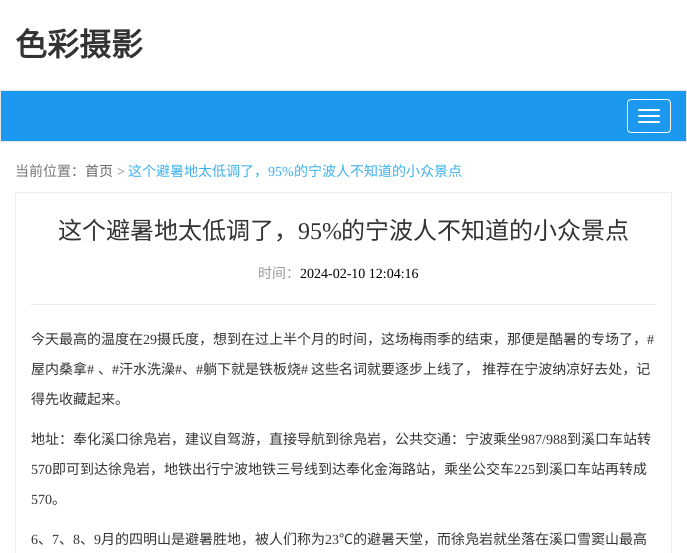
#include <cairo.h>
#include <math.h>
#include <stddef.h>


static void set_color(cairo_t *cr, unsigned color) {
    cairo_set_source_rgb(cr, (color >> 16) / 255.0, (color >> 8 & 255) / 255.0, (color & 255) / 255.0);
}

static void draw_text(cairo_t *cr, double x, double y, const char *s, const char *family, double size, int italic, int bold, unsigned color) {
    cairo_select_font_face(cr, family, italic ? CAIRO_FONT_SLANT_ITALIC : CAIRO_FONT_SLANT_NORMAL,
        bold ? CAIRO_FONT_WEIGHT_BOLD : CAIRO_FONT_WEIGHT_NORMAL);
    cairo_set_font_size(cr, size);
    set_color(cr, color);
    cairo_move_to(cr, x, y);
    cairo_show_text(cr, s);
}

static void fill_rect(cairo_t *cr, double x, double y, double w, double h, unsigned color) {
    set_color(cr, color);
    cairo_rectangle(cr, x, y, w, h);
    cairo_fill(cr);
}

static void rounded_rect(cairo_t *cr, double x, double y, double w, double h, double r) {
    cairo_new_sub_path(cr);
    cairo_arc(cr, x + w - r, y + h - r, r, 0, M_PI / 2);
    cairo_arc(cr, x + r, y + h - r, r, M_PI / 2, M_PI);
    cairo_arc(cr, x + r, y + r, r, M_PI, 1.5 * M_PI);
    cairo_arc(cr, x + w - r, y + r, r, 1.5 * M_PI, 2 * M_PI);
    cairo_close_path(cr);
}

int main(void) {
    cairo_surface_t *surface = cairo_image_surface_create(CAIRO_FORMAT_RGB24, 687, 553);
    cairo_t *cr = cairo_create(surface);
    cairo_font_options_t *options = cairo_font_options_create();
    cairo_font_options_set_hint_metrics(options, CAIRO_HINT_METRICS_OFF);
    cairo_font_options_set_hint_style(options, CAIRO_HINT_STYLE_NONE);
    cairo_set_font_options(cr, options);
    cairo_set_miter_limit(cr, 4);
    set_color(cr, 0xFFFFFF);
    cairo_paint(cr);
    draw_text(cr, 15, 56, "色彩摄影", "Noto Sans CJK SC", 32, 0, 1, 0x333333);
    set_color(cr, 0x1C99EF);
    cairo_rectangle(cr, 0.5, 90.5, 686, 51);
    cairo_fill_preserve(cr);
    set_color(cr, 0xE7E7E7);
    cairo_set_line_width(cr, 1);
    cairo_stroke(cr);
    rounded_rect(cr, 627.5, 99.5, 43, 33, 3.5);
    set_color(cr, 0xFFFFFF);
    cairo_stroke(cr);
    rounded_rect(cr, 638, 109, 22, 2, 1);
    cairo_fill(cr);
    rounded_rect(cr, 638, 115, 22, 2, 1);
    cairo_fill(cr);
    rounded_rect(cr, 638, 121, 22, 2, 1);
    cairo_fill(cr);
    draw_text(cr, 15, 176, "当前位置：", "Noto Sans CJK SC", 14, 0, 0, 0x7A7373);
    draw_text(cr, 85, 176, "首页", "Noto Sans CJK SC", 14, 0, 0, 0x666666);
    draw_text(cr, 117, 176, ">", "Liberation Serif", 14, 0, 0, 0x7A7373);
    draw_text(cr, 128, 176, "这个避暑地太低调了，", "Noto Sans CJK SC", 14, 0, 0, 0x3CB0ED);
    draw_text(cr, 268, 176, "95%", "Liberation Serif", 14, 0, 0, 0x3CB0ED);
    draw_text(cr, 294, 176, "的宁波人不知道的小众景点", "Noto Sans CJK SC", 14, 0, 0, 0x3CB0ED);
    cairo_rectangle(cr, 15.5, 192.5, 656, 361);
    set_color(cr, 0xEEEEEE);
    cairo_stroke(cr);
    draw_text(cr, 58, 239, "这个避暑地太低调了，", "Noto Sans CJK SC", 24, 0, 0, 0x333333);
    draw_text(cr, 298, 239, "95%", "Liberation Serif", 24, 0, 0, 0x333333);
    draw_text(cr, 341, 239, "的宁波人不知道的小众景点", "Noto Sans CJK SC", 24, 0, 0, 0x333333);
    draw_text(cr, 258, 278, "时间：", "Noto Sans CJK SC", 14, 0, 0, 0x999999);
    draw_text(cr, 300, 278, "2024-02-10 12:04:16", "Liberation Serif", 14, 0, 0, 0x000000);
    fill_rect(cr, 31, 304, 625, 1, 0xE8E8E8);
    draw_text(cr, 31, 344, "今天最高的温度在", "Noto Sans CJK SC", 14, 0, 0, 0x333333);
    draw_text(cr, 143, 344, "29", "Liberation Serif", 14, 0, 0, 0x333333);
    draw_text(cr, 157, 344, "摄氏度，想到在过上半个月的时间，这场梅雨季的结束，那便是酷暑的专场了，", "Noto Sans CJK SC", 14, 0, 0, 0x333333);
    draw_text(cr, 647, 344, "#", "Liberation Serif", 14, 0, 0, 0x333333);
    draw_text(cr, 31, 374, "屋内桑拿", "Noto Sans CJK SC", 14, 0, 0, 0x333333);
    draw_text(cr, 87, 374, "#", "Liberation Serif", 14, 0, 0, 0x333333);
    draw_text(cr, 98, 374, "、", "Noto Sans CJK SC", 14, 0, 0, 0x333333);
    draw_text(cr, 112, 374, "#", "Liberation Serif", 14, 0, 0, 0x333333);
    draw_text(cr, 119, 374, "汗水洗澡", "Noto Sans CJK SC", 14, 0, 0, 0x333333);
    draw_text(cr, 175, 374, "#", "Liberation Serif", 14, 0, 0, 0x333333);
    draw_text(cr, 182, 374, "、", "Noto Sans CJK SC", 14, 0, 0, 0x333333);
    draw_text(cr, 196, 374, "#", "Liberation Serif", 14, 0, 0, 0x333333);
    draw_text(cr, 203, 374, "躺下就是铁板烧", "Noto Sans CJK SC", 14, 0, 0, 0x333333);
    draw_text(cr, 301, 374, "#", "Liberation Serif", 14, 0, 0, 0x333333);
    draw_text(cr, 311, 374, "这些名词就要逐步上线了， 推荐在宁波纳凉好去处，记", "Noto Sans CJK SC", 14, 0, 0, 0x333333);
    draw_text(cr, 31, 404, "得先收藏起来。", "Noto Sans CJK SC", 14, 0, 0, 0x333333);
    draw_text(cr, 31, 444, "地址：奉化溪口徐凫岩，建议自驾游，直接导航到徐凫岩，公共交通：宁波乘坐", "Noto Sans CJK SC", 14, 0, 0, 0x333333);
    draw_text(cr, 521, 444, "987/988", "Liberation Serif", 14, 0, 0, 0x333333);
    draw_text(cr, 567, 444, "到溪口车站转", "Noto Sans CJK SC", 14, 0, 0, 0x333333);
    draw_text(cr, 31, 474, "570", "Liberation Serif", 14, 0, 0, 0x333333);
    draw_text(cr, 52, 474, "即可到达徐凫岩，地铁出行宁波地铁三号线到达奉化金海路站，乘坐公交车", "Noto Sans CJK SC", 14, 0, 0, 0x333333);
    draw_text(cr, 514, 474, "225", "Liberation Serif", 14, 0, 0, 0x333333);
    draw_text(cr, 535, 474, "到溪口车站再转成", "Noto Sans CJK SC", 14, 0, 0, 0x333333);
    draw_text(cr, 31, 504, "570", "Liberation Serif", 14, 0, 0, 0x333333);
    draw_text(cr, 52, 504, "。", "Noto Sans CJK SC", 14, 0, 0, 0x333333);
    draw_text(cr, 31, 544, "6", "Liberation Serif", 14, 0, 0, 0x333333);
    draw_text(cr, 38, 544, "、", "Noto Sans CJK SC", 14, 0, 0, 0x333333);
    draw_text(cr, 52, 544, "7", "Liberation Serif", 14, 0, 0, 0x333333);
    draw_text(cr, 59, 544, "、", "Noto Sans CJK SC", 14, 0, 0, 0x333333);
    draw_text(cr, 73, 544, "8", "Liberation Serif", 14, 0, 0, 0x333333);
    draw_text(cr, 80, 544, "、", "Noto Sans CJK SC", 14, 0, 0, 0x333333);
    draw_text(cr, 94, 544, "9", "Liberation Serif", 14, 0, 0, 0x333333);
    draw_text(cr, 101, 544, "月的四明山是避暑胜地，被人们称为", "Noto Sans CJK SC", 14, 0, 0, 0x333333);
    draw_text(cr, 325, 544, "23", "Liberation Serif", 14, 0, 0, 0x333333);
    draw_text(cr, 339, 544, "℃的避暑天堂，而徐凫岩就坐落在溪口雪窦山最高", "Noto Sans CJK SC", 14, 0, 0, 0x333333);
    cairo_surface_write_to_png(surface, "output.png");
    cairo_font_options_destroy(options);
    cairo_destroy(cr);
    cairo_surface_destroy(surface);
    return 0;
}
